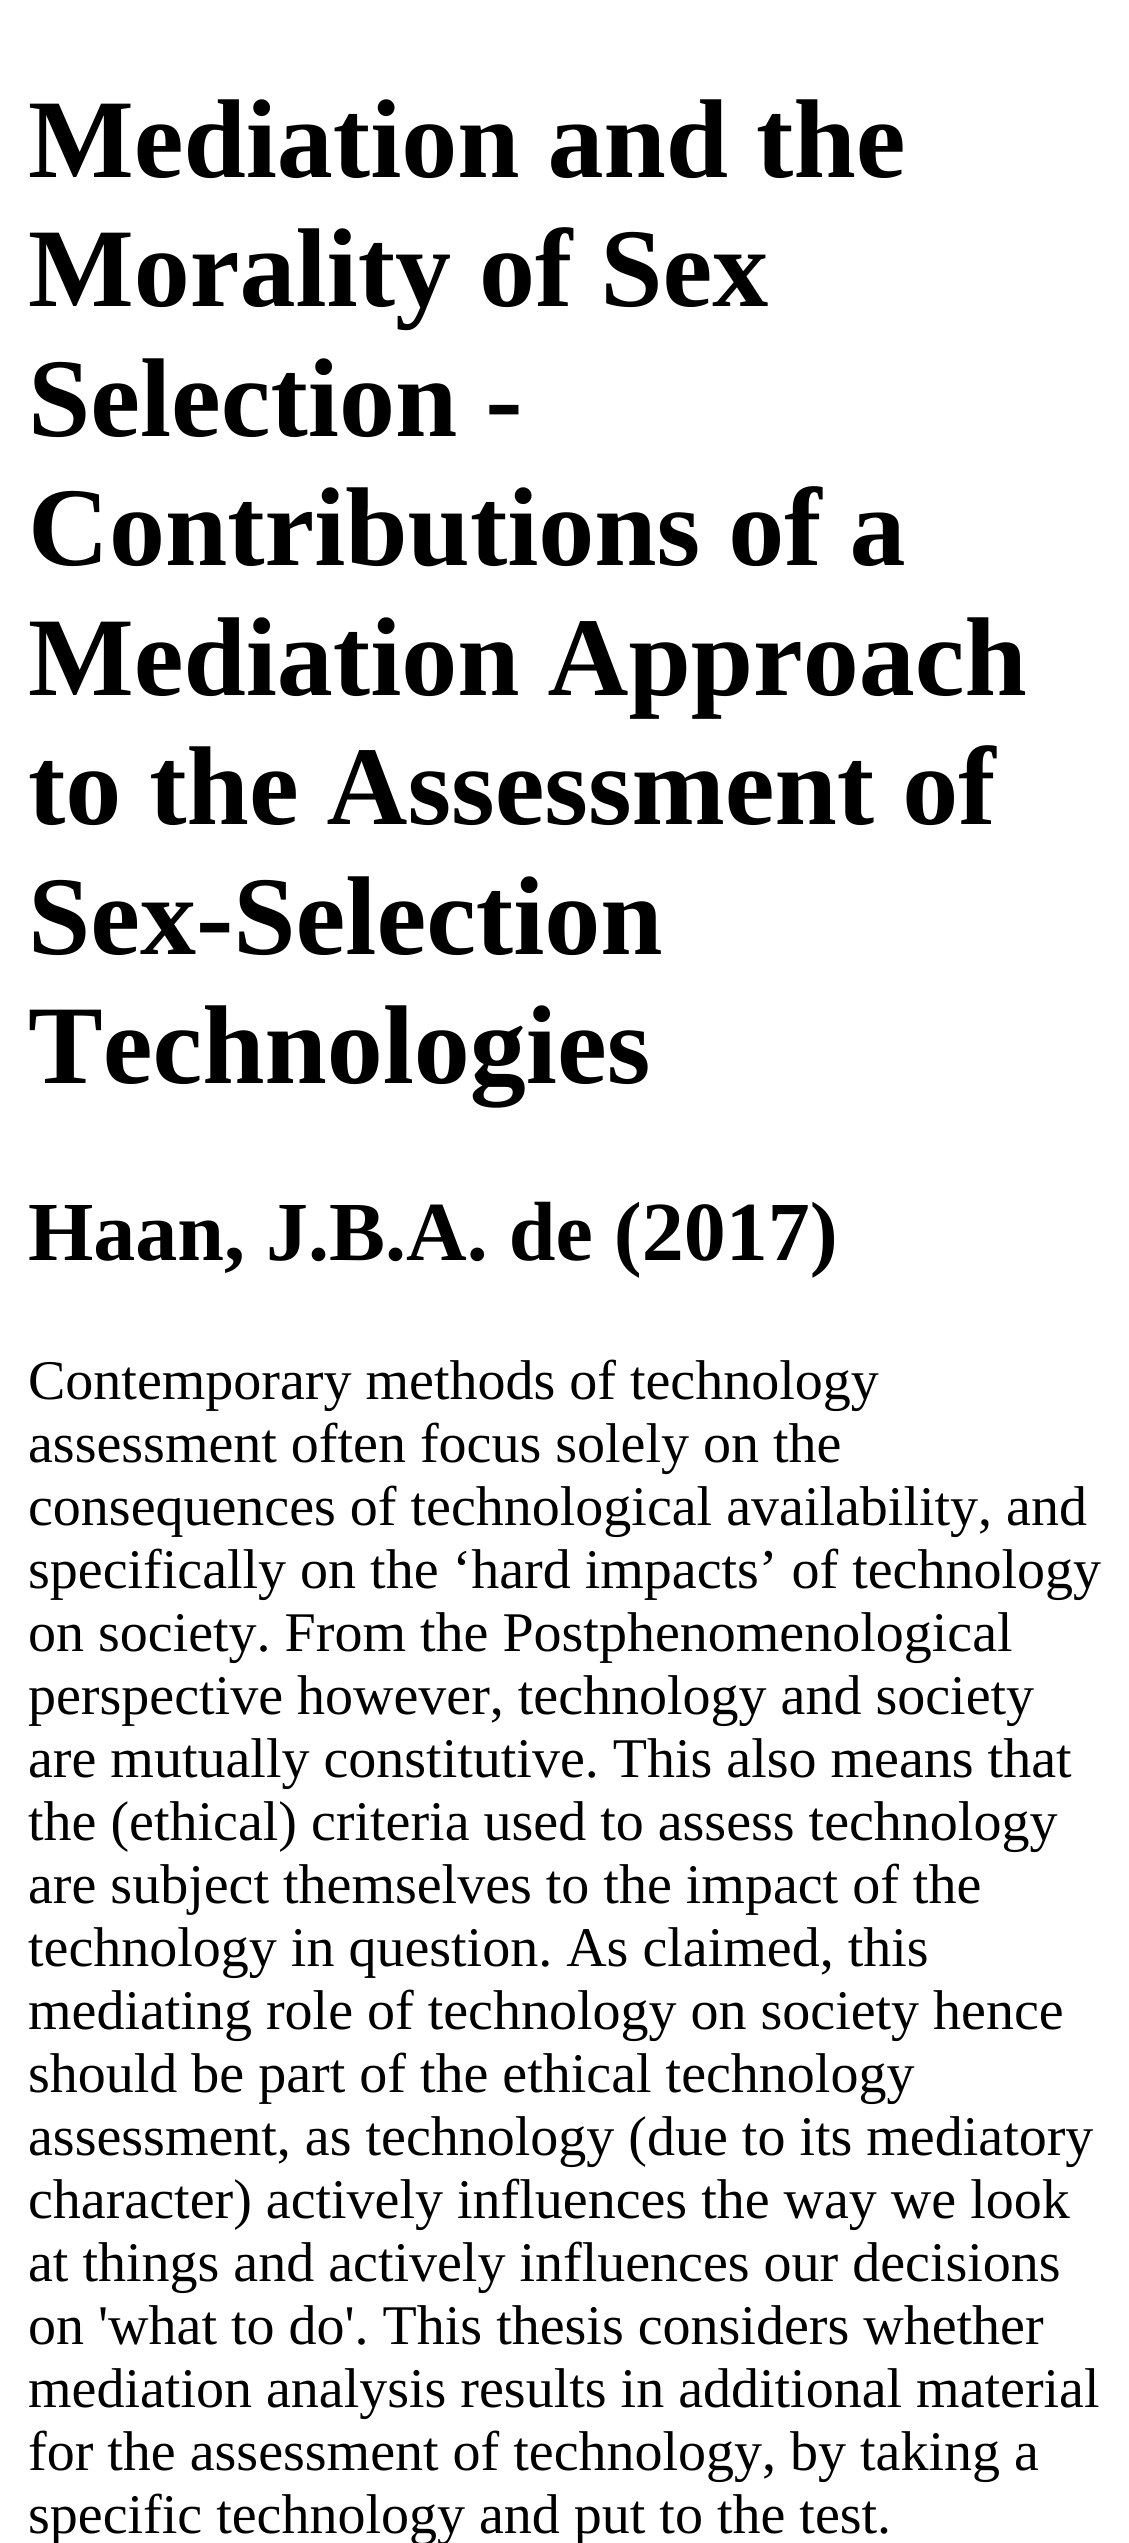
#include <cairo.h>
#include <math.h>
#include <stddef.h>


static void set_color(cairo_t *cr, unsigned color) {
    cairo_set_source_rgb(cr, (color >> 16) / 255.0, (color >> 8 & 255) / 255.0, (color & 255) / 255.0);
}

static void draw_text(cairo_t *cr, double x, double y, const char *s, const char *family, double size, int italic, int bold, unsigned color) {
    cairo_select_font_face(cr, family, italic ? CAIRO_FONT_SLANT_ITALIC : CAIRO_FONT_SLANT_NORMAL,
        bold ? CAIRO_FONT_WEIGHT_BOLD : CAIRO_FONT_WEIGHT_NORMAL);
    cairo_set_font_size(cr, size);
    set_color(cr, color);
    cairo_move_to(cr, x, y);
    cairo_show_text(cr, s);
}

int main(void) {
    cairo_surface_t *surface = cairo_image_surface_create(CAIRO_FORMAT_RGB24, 1129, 2543);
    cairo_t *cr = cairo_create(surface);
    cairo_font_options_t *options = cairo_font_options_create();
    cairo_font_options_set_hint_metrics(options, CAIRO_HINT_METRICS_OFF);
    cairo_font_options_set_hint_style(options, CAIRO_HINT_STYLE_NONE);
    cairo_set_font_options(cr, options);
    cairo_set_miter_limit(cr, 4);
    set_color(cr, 0xFFFFFF);
    cairo_paint(cr);
    draw_text(cr, 28, 177, "Mediation and the", "Liberation Serif", 112, 0, 1, 0x000000);
    draw_text(cr, 28, 306, "Morality of Sex", "Liberation Serif", 112, 0, 1, 0x000000);
    draw_text(cr, 28, 436, "Selection -", "Liberation Serif", 112, 0, 1, 0x000000);
    draw_text(cr, 28, 565, "Contributions of a", "Liberation Serif", 112, 0, 1, 0x000000);
    draw_text(cr, 28, 695, "Mediation Approach", "Liberation Serif", 112, 0, 1, 0x000000);
    draw_text(cr, 28, 824, "to the Assessment of", "Liberation Serif", 112, 0, 1, 0x000000);
    draw_text(cr, 28, 954, "Sex-Selection", "Liberation Serif", 112, 0, 1, 0x000000);
    draw_text(cr, 28, 1083, "Technologies", "Liberation Serif", 112, 0, 1, 0x000000);
    draw_text(cr, 28, 1260, "Haan, J.B.A. de (2017)", "Liberation Serif", 84, 0, 1, 0x000000);
    draw_text(cr, 28, 1399, "Contemporary methods of technology", "Liberation Serif", 56, 0, 0, 0x000000);
    draw_text(cr, 28, 1462, "assessment often focus solely on the", "Liberation Serif", 56, 0, 0, 0x000000);
    draw_text(cr, 28, 1525, "consequences of technological availability, and", "Liberation Serif", 56, 0, 0, 0x000000);
    draw_text(cr, 28, 1588, "specifically on the ‘hard impacts’ of technology", "Liberation Serif", 56, 0, 0, 0x000000);
    draw_text(cr, 28, 1651, "on society. From the Postphenomenological", "Liberation Serif", 56, 0, 0, 0x000000);
    draw_text(cr, 28, 1714, "perspective however, technology and society", "Liberation Serif", 56, 0, 0, 0x000000);
    draw_text(cr, 28, 1777, "are mutually constitutive. This also means that", "Liberation Serif", 56, 0, 0, 0x000000);
    draw_text(cr, 28, 1840, "the (ethical) criteria used to assess technology", "Liberation Serif", 56, 0, 0, 0x000000);
    draw_text(cr, 28, 1903, "are subject themselves to the impact of the", "Liberation Serif", 56, 0, 0, 0x000000);
    draw_text(cr, 28, 1966, "technology in question. As claimed, this", "Liberation Serif", 56, 0, 0, 0x000000);
    draw_text(cr, 28, 2029, "mediating role of technology on society hence", "Liberation Serif", 56, 0, 0, 0x000000);
    draw_text(cr, 28, 2092, "should be part of the ethical technology", "Liberation Serif", 56, 0, 0, 0x000000);
    draw_text(cr, 28, 2155, "assessment, as technology (due to its mediatory", "Liberation Serif", 56, 0, 0, 0x000000);
    draw_text(cr, 28, 2218, "character) actively influences the way we look", "Liberation Serif", 56, 0, 0, 0x000000);
    draw_text(cr, 28, 2281, "at things and actively influences our decisions", "Liberation Serif", 56, 0, 0, 0x000000);
    draw_text(cr, 28, 2344, "on 'what to do'. This thesis considers whether", "Liberation Serif", 56, 0, 0, 0x000000);
    draw_text(cr, 28, 2407, "mediation analysis results in additional material", "Liberation Serif", 56, 0, 0, 0x000000);
    draw_text(cr, 28, 2470, "for the assessment of technology, by taking a", "Liberation Serif", 56, 0, 0, 0x000000);
    draw_text(cr, 28, 2533, "specific technology and put to the test.", "Liberation Serif", 56, 0, 0, 0x000000);
    cairo_surface_write_to_png(surface, "output.png");
    cairo_font_options_destroy(options);
    cairo_destroy(cr);
    cairo_surface_destroy(surface);
    return 0;
}
